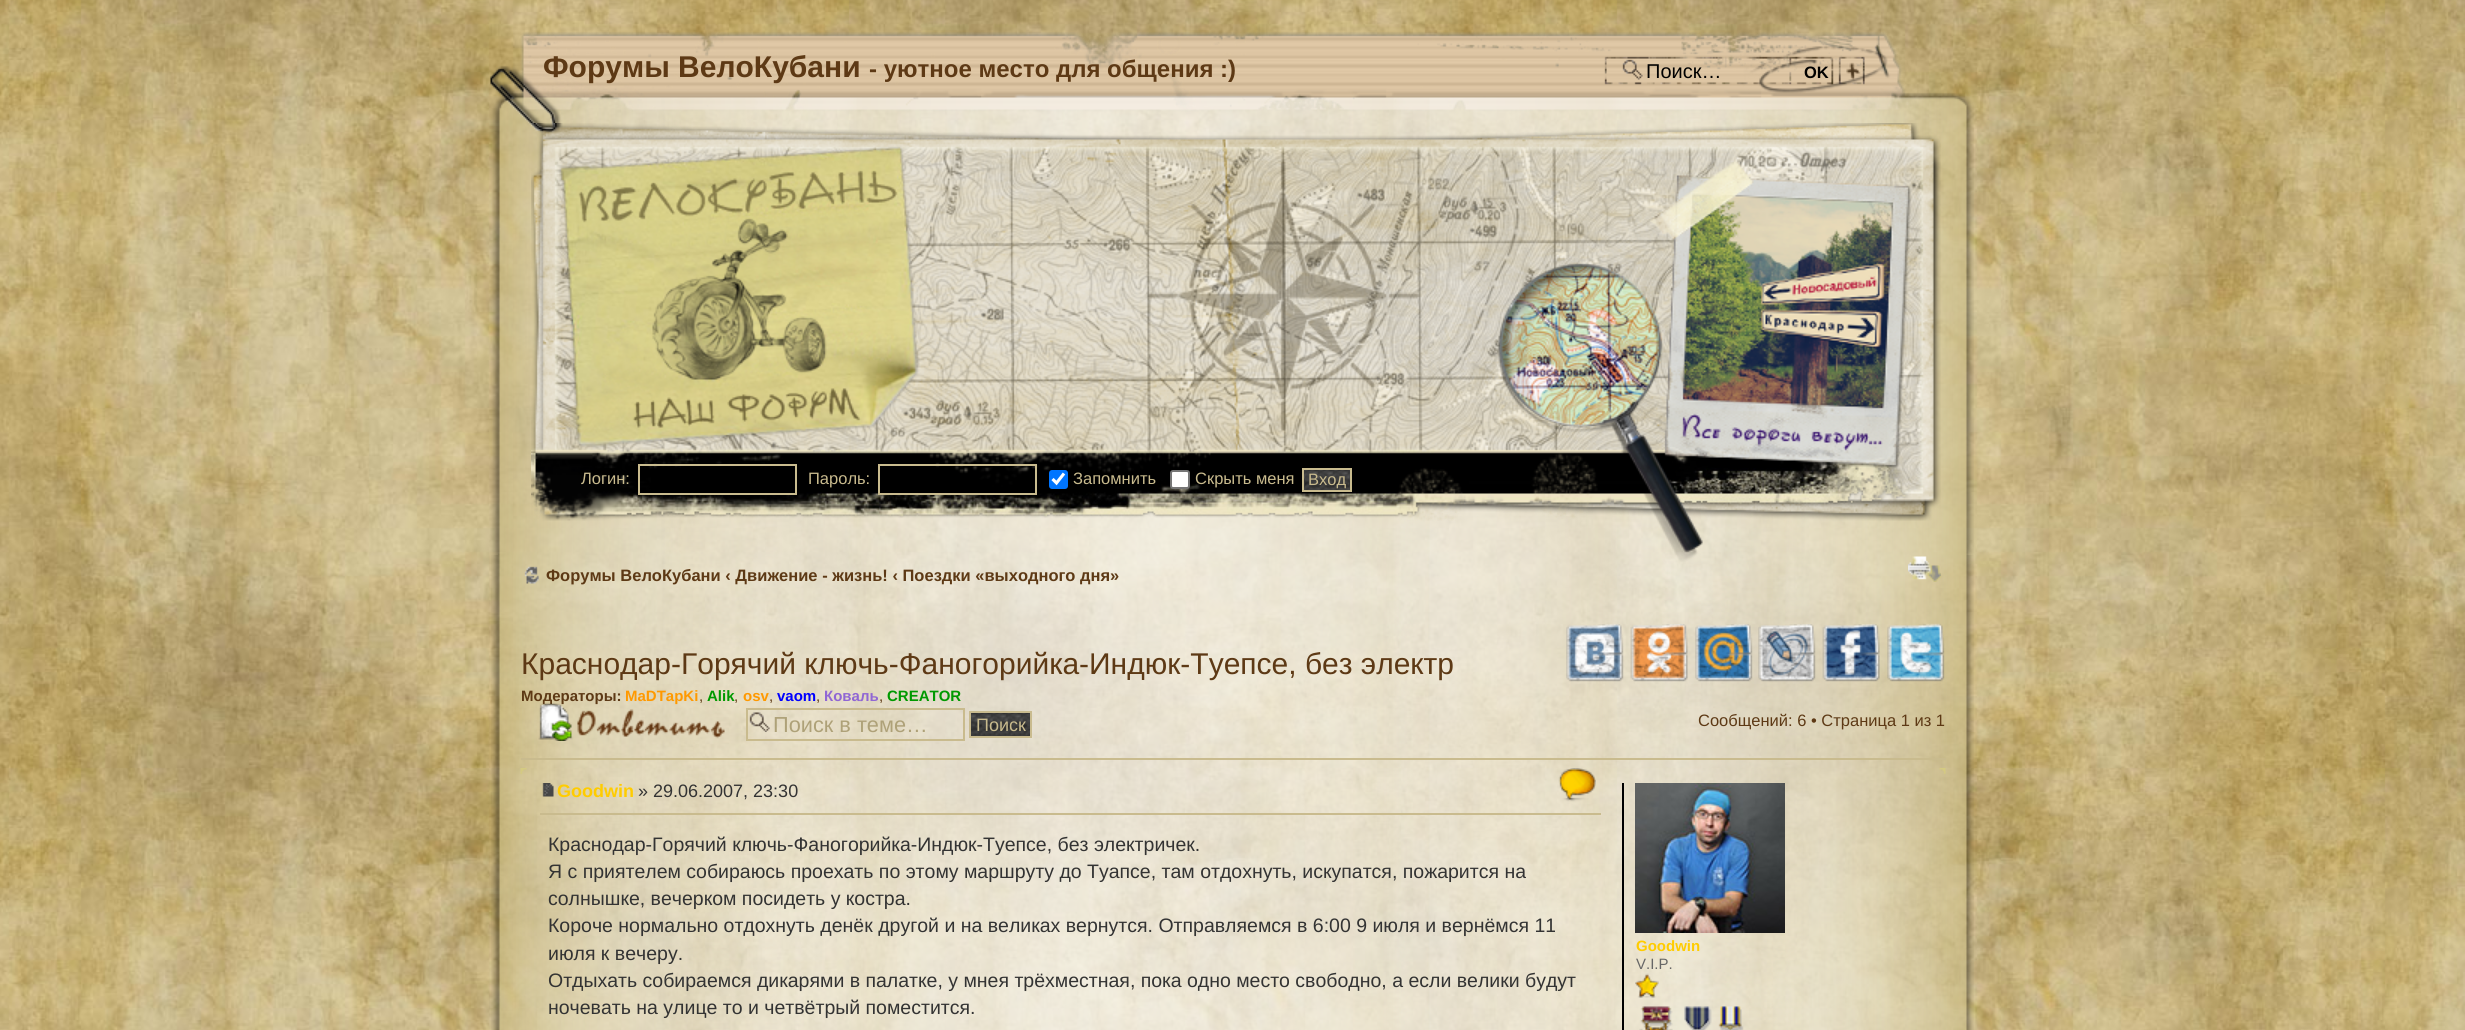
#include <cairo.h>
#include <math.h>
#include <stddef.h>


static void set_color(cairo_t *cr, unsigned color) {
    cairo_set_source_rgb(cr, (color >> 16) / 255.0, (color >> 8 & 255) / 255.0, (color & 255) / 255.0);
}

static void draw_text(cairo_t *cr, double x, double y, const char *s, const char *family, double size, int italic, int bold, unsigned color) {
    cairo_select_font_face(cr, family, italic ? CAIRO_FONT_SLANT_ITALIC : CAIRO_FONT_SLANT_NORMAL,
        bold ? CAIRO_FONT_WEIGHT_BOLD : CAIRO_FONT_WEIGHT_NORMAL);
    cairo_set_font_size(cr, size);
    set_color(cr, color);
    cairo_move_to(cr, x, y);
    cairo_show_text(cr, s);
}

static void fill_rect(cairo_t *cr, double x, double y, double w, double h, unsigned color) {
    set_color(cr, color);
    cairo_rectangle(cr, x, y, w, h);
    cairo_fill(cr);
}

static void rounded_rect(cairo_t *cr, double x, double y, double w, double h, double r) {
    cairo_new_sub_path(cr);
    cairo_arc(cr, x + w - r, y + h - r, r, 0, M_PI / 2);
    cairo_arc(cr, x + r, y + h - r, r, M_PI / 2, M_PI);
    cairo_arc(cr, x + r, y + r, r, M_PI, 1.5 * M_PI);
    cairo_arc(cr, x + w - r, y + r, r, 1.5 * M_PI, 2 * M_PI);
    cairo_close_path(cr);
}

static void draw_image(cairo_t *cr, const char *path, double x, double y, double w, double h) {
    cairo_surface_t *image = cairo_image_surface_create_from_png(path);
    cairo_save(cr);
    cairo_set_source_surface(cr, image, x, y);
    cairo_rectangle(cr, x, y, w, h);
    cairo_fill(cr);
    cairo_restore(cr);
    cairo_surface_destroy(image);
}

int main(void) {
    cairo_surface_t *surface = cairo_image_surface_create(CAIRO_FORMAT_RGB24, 2465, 1030);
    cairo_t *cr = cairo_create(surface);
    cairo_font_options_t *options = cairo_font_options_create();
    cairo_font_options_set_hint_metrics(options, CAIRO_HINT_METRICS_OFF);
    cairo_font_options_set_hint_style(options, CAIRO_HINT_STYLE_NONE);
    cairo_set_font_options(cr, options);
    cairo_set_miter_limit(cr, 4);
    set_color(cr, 0xFFFFFF);
    cairo_paint(cr);
    draw_image(cr, "assets/img1.png", 0, 0, 2465, 1030);
    draw_image(cr, "assets/img2.png", 490, 32, 1484, 523);
    draw_text(cr, 543, 77, "Форумы ВелоКубани", "Liberation Sans", 30, 0, 1, 0x5D3915);
    draw_text(cr, 869, 77, "- уютное место для общения :)", "Liberation Sans", 24, 0, 1, 0x5D3915);
    draw_image(cr, "assets/img3.png", 1604, 45, 284, 49);
    draw_image(cr, "assets/img4.png", 1622, 59, 21, 21);
    draw_text(cr, 1646, 78, "Поиск…", "Liberation Sans", 20, 0, 0, 0x000000);
    draw_text(cr, 1804, 78, "OK", "Liberation Sans", 16.5, 0, 1, 0x000000);
    draw_image(cr, "assets/img5.png", 531, 123, 1410, 398);
    draw_text(cr, 581, 484, "Логин:", "Liberation Sans", 16.5, 0, 0, 0xC9BB8E);
    cairo_rectangle(cr, 639, 465, 157, 29);
    cairo_stroke(cr);
    draw_text(cr, 808, 484, "Пароль:", "Liberation Sans", 16.5, 0, 0, 0xC9BB8E);
    cairo_rectangle(cr, 879, 465, 157, 29);
    cairo_stroke(cr);
    set_color(cr, 0x0075FF);
    rounded_rect(cr, 1049, 470, 19, 19, 3);
    cairo_fill(cr);
    cairo_new_path(cr);
    cairo_move_to(cr, 1052.5, 479);
    cairo_line_to(cr, 1056.5, 483);
    cairo_line_to(cr, 1064, 473.5);
    set_color(cr, 0xFFFFFF);
    cairo_set_line_width(cr, 3.1);
    cairo_stroke(cr);
    draw_text(cr, 1073, 484, "Запомнить", "Liberation Sans", 16.5, 0, 0, 0xC9BB8E);
    set_color(cr, 0xFFFFFF);
    rounded_rect(cr, 1171, 471, 18, 17, 2);
    cairo_fill_preserve(cr);
    set_color(cr, 0x767676);
    cairo_set_line_width(cr, 2);
    cairo_stroke(cr);
    draw_text(cr, 1195, 484, "Скрыть меня", "Liberation Sans", 16.5, 0, 0, 0xC9BB8E);
    draw_image(cr, "assets/img6.png", 1304, 470, 46, 20);
    cairo_rectangle(cr, 1303, 469, 48, 22);
    cairo_stroke(cr);
    draw_text(cr, 1308, 485, "Вход", "Liberation Sans", 16.5, 0, 0, 0xC9BB8E);
    draw_image(cr, "assets/img8.png", 491, 555, 1483, 475);
    draw_image(cr, "assets/img7.png", 1497, 263, 206, 299);
    draw_image(cr, "assets/img9.png", 524, 566, 15, 18);
    draw_text(cr, 546, 581, "Форумы ВелоКубани ‹ Движение - жизнь! ‹ Поездки «выходного дня»", "Liberation Sans", 16.5, 0, 1, 0x5D3915);
    draw_image(cr, "assets/img10.png", 1908, 556, 33, 26);
    draw_text(cr, 521, 674, "Краснодар-Горячий ключь-Фаногорийка-Индюк-Туепсе, без электр", "Liberation Sans", 30, 0, 0, 0x5D3915);
    draw_image(cr, "assets/img11.png", 1566, 624, 58, 58);
    draw_image(cr, "assets/img12.png", 1630, 624, 58, 58);
    draw_image(cr, "assets/img13.png", 1695, 624, 58, 58);
    draw_image(cr, "assets/img14.png", 1758, 624, 58, 58);
    draw_image(cr, "assets/img15.png", 1822, 624, 58, 58);
    draw_image(cr, "assets/img16.png", 1887, 623, 58, 59);
    draw_text(cr, 521, 701, "Модераторы:", "Liberation Sans", 15, 0, 1, 0x5D3915);
    draw_text(cr, 625, 701, "MaDTapKi", "Liberation Sans", 15, 0, 1, 0xFF9900);
    draw_text(cr, 699, 701, ",", "Liberation Sans", 15, 0, 0, 0x5D3915);
    draw_text(cr, 707, 701, "Alik", "Liberation Sans", 15, 0, 1, 0x009900);
    draw_text(cr, 734, 701, ",", "Liberation Sans", 15, 0, 0, 0x5D3915);
    draw_text(cr, 743, 701, "osv", "Liberation Sans", 15, 0, 1, 0xFF9900);
    draw_text(cr, 769, 701, ",", "Liberation Sans", 15, 0, 0, 0x5D3915);
    draw_text(cr, 777, 701, "vaom", "Liberation Sans", 15, 0, 1, 0x0000FF);
    draw_text(cr, 816, 701, ",", "Liberation Sans", 15, 0, 0, 0x5D3915);
    draw_text(cr, 824, 701, "Коваль", "Liberation Sans", 15, 0, 1, 0x9066D4);
    draw_text(cr, 879, 701, ",", "Liberation Sans", 15, 0, 0, 0x5D3915);
    draw_text(cr, 887, 701, "CREATOR", "Liberation Sans", 15, 0, 1, 0x009900);
    draw_image(cr, "assets/img17.png", 538, 703, 187, 38);
    draw_image(cr, "assets/img18.png", 749, 712, 21, 20);
    cairo_rectangle(cr, 747, 709, 217, 31);
    set_color(cr, 0xC9BB8E);
    cairo_stroke(cr);
    draw_text(cr, 773, 732, "Поиск в теме…", "Liberation Sans", 21.75, 0, 0, 0xAEA178);
    draw_image(cr, "assets/img19.png", 971, 713, 59, 23);
    cairo_rectangle(cr, 970, 712, 61, 25);
    set_color(cr, 0xC9BB8E);
    cairo_stroke(cr);
    draw_text(cr, 976, 731, "Поиск", "Liberation Sans", 18, 0, 0, 0xC9BB8E);
    draw_text(cr, 1698, 726, "Сообщений: 6 • Страница 1 из 1", "Liberation Sans", 16.5, 0, 0, 0x5D3915);
    fill_rect(cr, 521, 758, 1425, 2, 0xC9BB8E);
    draw_image(cr, "assets/img20.png", 520, 768, 7, 6);
    draw_image(cr, "assets/img21.png", 1939, 768, 7, 6);
    draw_image(cr, "assets/img22.png", 542, 783, 12, 14);
    draw_text(cr, 557, 797, "Goodwin", "Liberation Sans", 18, 0, 1, 0xFFCC00);
    draw_text(cr, 638, 797, "» 29.06.2007, 23:30", "Liberation Sans", 18, 0, 0, 0x333333);
    draw_image(cr, "assets/img23.png", 1558, 768, 38, 34);
    fill_rect(cr, 540, 813, 1061, 2, 0xC9BB8E);
    draw_text(cr, 548, 851, "Краснодар-Горячий ключь-Фаногорийка-Индюк-Туепсе, без электричек.", "Liberation Sans", 19.5, 0, 0, 0x333333);
    draw_text(cr, 548, 878, "Я с приятелем собираюсь проехать по этому маршруту до Туапсе, там отдохнуть, искупатся, пожарится на", "Liberation Sans", 19.5, 0, 0, 0x333333);
    draw_text(cr, 548, 905, "солнышке, вечерком посидеть у костра.", "Liberation Sans", 19.5, 0, 0, 0x333333);
    draw_text(cr, 548, 932, "Короче нормально отдохнуть денёк другой и на великах вернутся. Отправляемся в 6:00 9 июля и вернёмся 11", "Liberation Sans", 19.5, 0, 0, 0x333333);
    draw_text(cr, 548, 960, "июля к вечеру.", "Liberation Sans", 19.5, 0, 0, 0x333333);
    draw_text(cr, 548, 987, "Отдыхать собираемся дикарями в палатке, у мнея трёхместная, пока одно место свободно, а если велики будут", "Liberation Sans", 19.5, 0, 0, 0x333333);
    draw_text(cr, 548, 1014, "ночевать на улице то и четвётрый поместится.", "Liberation Sans", 19.5, 0, 0, 0x333333);
    fill_rect(cr, 1622, 783, 2, 247, 0x000000);
    draw_image(cr, "assets/img24.png", 1635, 783, 150, 150);
    draw_text(cr, 1636, 951, "Goodwin", "Liberation Sans", 15, 0, 1, 0xFFCC00);
    draw_text(cr, 1636, 969, "V.I.P.", "Liberation Sans", 15, 0, 0, 0x666666);
    draw_image(cr, "assets/img25.png", 1635, 973, 24, 25);
    draw_image(cr, "assets/img26.png", 1639, 1006, 34, 24);
    draw_image(cr, "assets/img27.png", 1684, 1006, 28, 24);
    draw_image(cr, "assets/img28.png", 1718, 1006, 26, 24);
    cairo_surface_write_to_png(surface, "output.png");
    cairo_font_options_destroy(options);
    cairo_destroy(cr);
    cairo_surface_destroy(surface);
    return 0;
}
